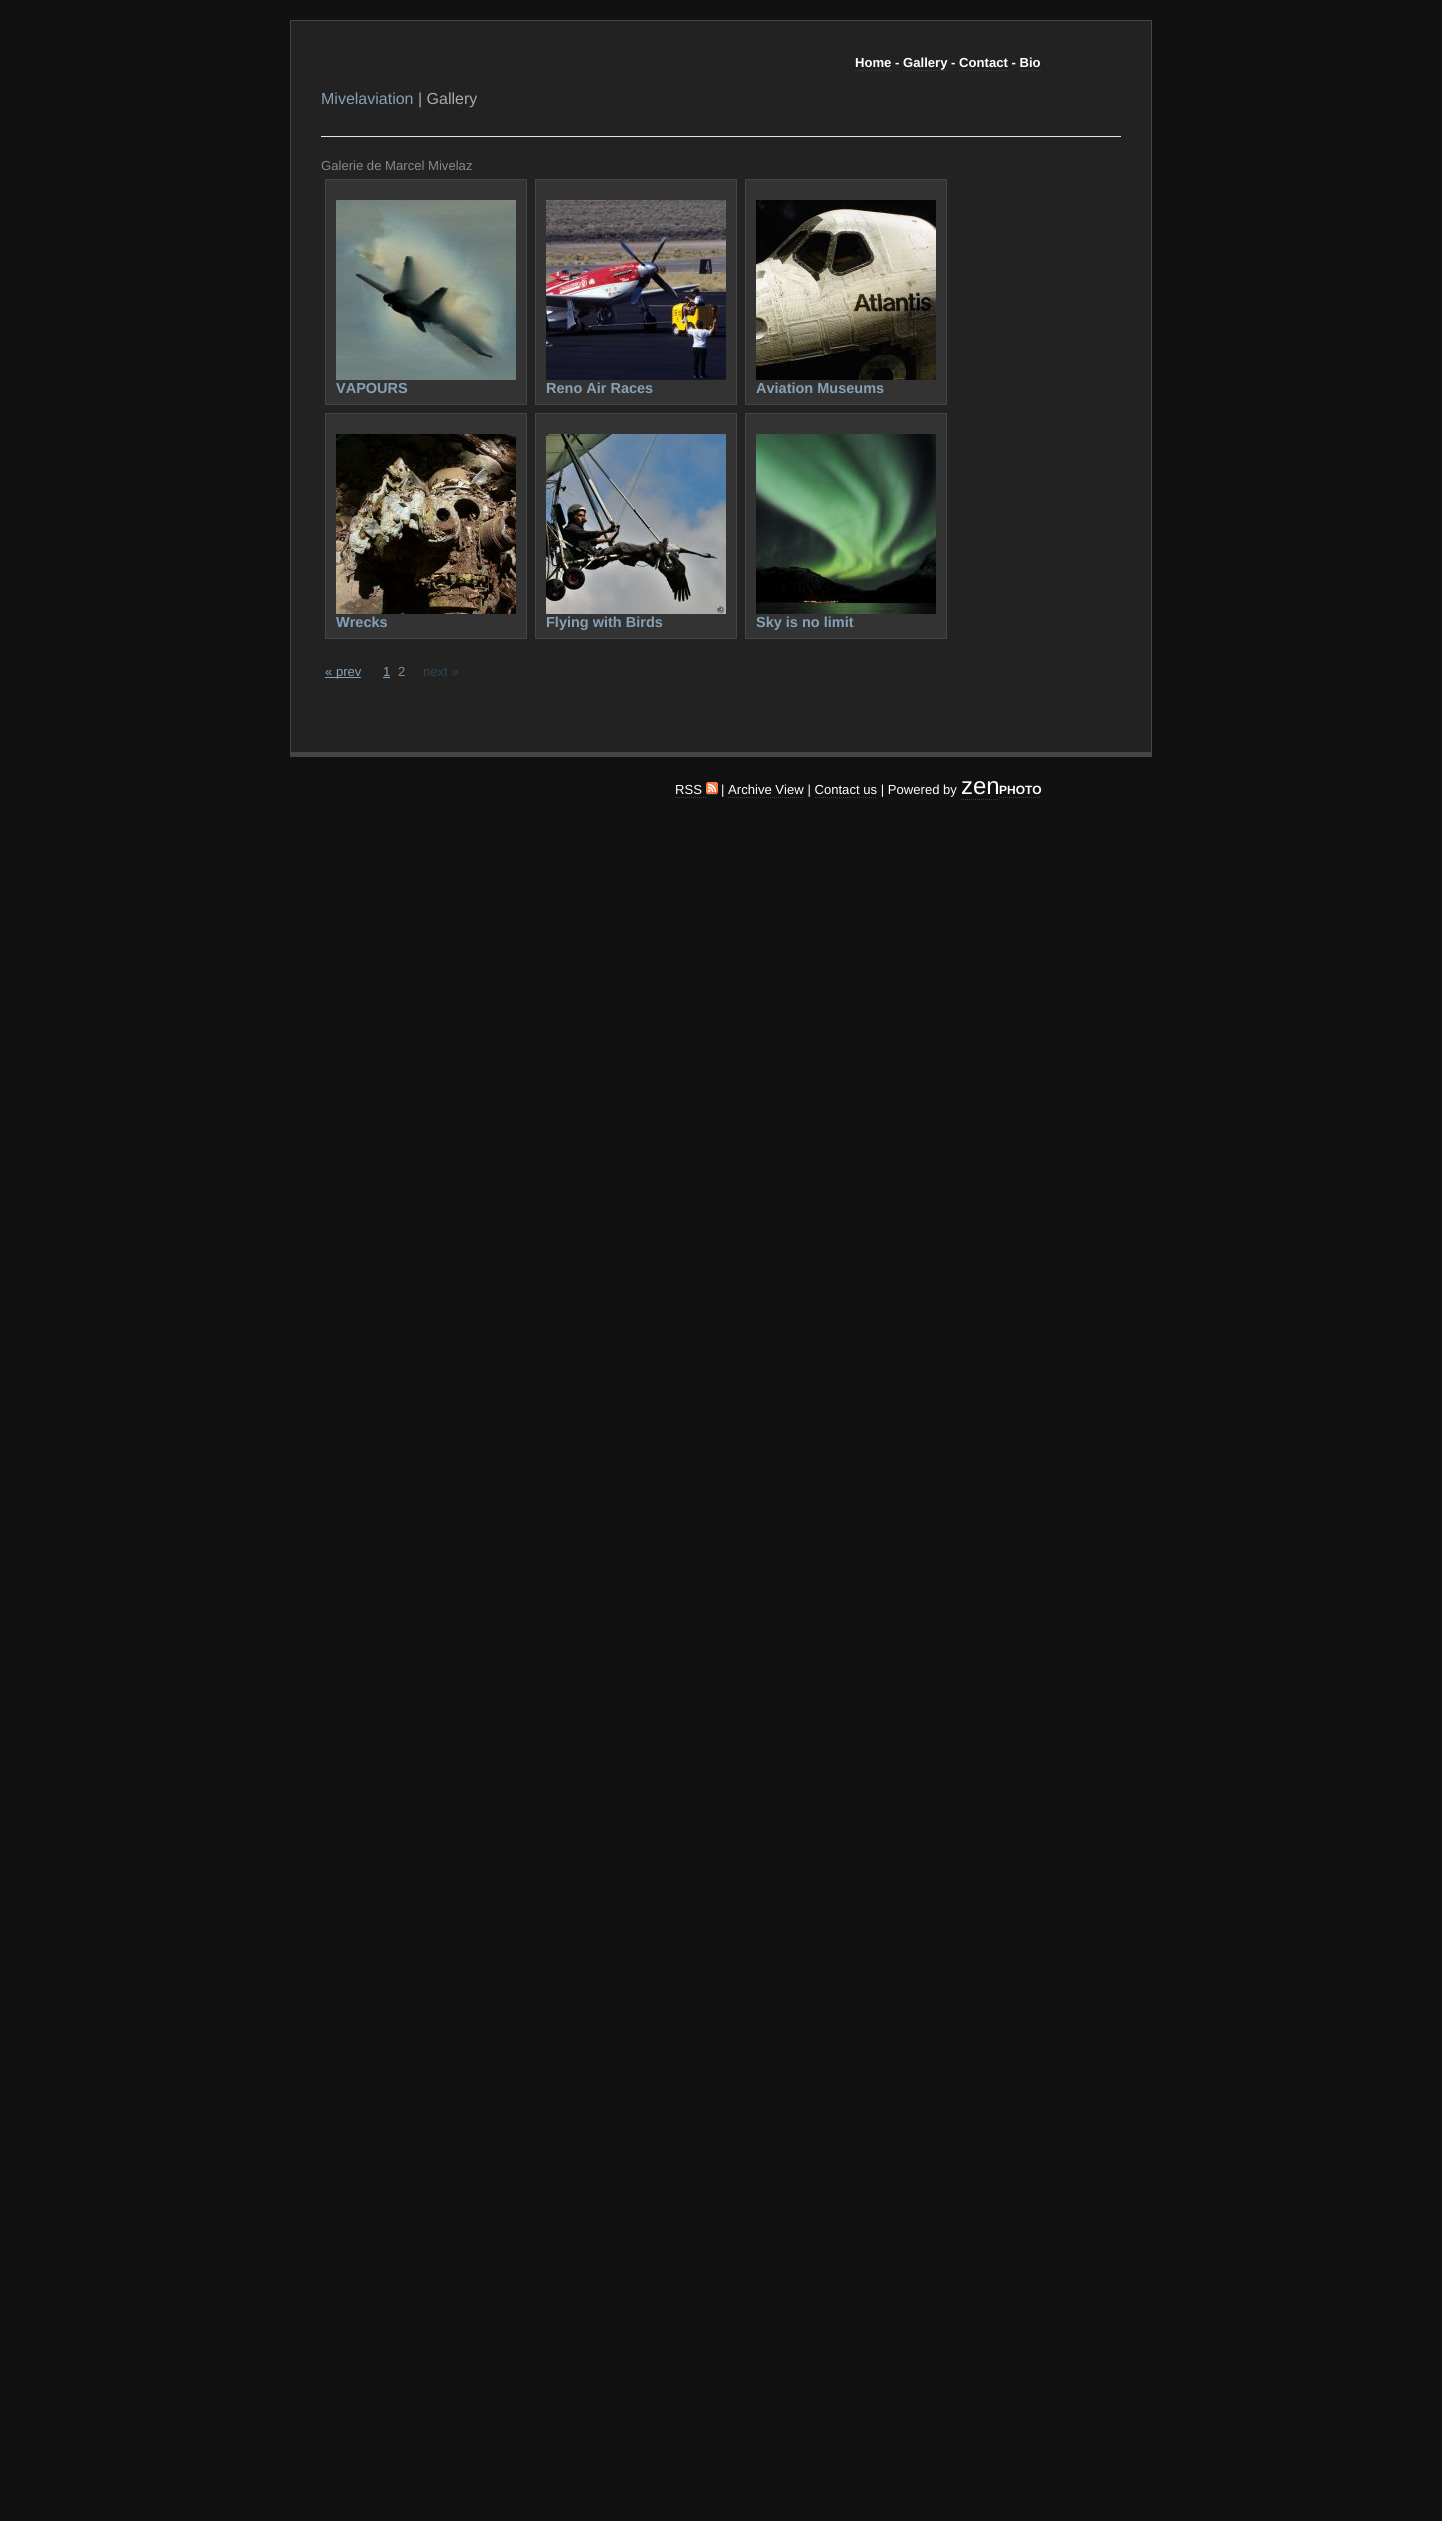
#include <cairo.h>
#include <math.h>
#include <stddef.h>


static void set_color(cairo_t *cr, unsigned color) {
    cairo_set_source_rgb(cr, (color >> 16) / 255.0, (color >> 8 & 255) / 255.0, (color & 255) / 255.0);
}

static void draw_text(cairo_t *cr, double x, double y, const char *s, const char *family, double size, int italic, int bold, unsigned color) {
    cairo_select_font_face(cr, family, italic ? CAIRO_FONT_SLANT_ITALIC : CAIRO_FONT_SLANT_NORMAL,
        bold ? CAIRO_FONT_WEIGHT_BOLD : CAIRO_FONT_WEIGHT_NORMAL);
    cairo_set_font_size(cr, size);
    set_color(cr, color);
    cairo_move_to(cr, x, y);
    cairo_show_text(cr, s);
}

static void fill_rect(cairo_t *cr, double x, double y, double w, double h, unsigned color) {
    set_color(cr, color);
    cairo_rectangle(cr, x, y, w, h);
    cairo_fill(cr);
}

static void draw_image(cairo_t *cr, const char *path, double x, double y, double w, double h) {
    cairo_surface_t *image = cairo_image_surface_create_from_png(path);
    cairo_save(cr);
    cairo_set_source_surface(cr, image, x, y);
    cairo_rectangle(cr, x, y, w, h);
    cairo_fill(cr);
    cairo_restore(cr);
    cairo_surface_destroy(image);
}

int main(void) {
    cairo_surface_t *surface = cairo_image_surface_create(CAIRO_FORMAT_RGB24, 1442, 2521);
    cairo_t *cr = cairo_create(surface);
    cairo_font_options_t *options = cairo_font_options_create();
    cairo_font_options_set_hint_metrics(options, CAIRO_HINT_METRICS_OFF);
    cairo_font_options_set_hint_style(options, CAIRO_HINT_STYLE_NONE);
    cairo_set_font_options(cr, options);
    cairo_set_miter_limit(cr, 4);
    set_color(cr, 0x111111);
    cairo_paint(cr);
    fill_rect(cr, 291, 21, 860, 731, 0x222222);
    fill_rect(cr, 290, 20, 862, 1, 0x444444);
    fill_rect(cr, 1151, 20, 1, 737, 0x444444);
    fill_rect(cr, 290, 752, 862, 5, 0x444444);
    fill_rect(cr, 290, 20, 1, 737, 0x444444);
    draw_text(cr, 855, 67, "Home - Gallery - Contact - Bio", "Liberation Sans", 13.1, 0, 1, 0xFFFFFF);
    cairo_new_path(cr);
    cairo_move_to(cr, 855, 70.5);
    cairo_line_to(cr, 892, 70.5);
    set_color(cr, 0x294550);
    cairo_set_line_width(cr, 1);
    cairo_set_dash(cr, (double[]){1, 1}, 2, 0);
    cairo_stroke(cr);
    cairo_new_path(cr);
    cairo_move_to(cr, 903, 70.5);
    cairo_line_to(cr, 948, 70.5);
    cairo_stroke(cr);
    cairo_new_path(cr);
    cairo_move_to(cr, 959, 70.5);
    cairo_line_to(cr, 1008, 70.5);
    cairo_stroke(cr);
    cairo_new_path(cr);
    cairo_move_to(cr, 1020, 70.5);
    cairo_line_to(cr, 1041, 70.5);
    cairo_stroke(cr);
    fill_rect(cr, 321, 136, 800, 1, 0xE6E6DF);
    draw_text(cr, 321, 104, "Mivelaviation", "Liberation Sans", 16, 0, 0, 0x86A1B6);
    draw_text(cr, 418, 104, "| Gallery", "Liberation Sans", 16, 0, 0, 0xAAAAAA);
    draw_text(cr, 321, 170, "Galerie de Marcel Mivelaz", "Liberation Sans", 13.1, 0, 0, 0x888888);
    set_color(cr, 0x333333);
    cairo_rectangle(cr, 325.5, 179.5, 201, 225);
    cairo_fill_preserve(cr);
    set_color(cr, 0x444444);
    cairo_set_dash(cr, NULL, 0, 0);
    cairo_stroke(cr);
    draw_image(cr, "assets/img1.png", 336, 200, 180, 180);
    draw_text(cr, 336, 393, "VAPOURS", "Liberation Sans", 14.5, 0, 1, 0x86A1B6);
    set_color(cr, 0x333333);
    cairo_rectangle(cr, 535.5, 179.5, 201, 225);
    cairo_fill_preserve(cr);
    set_color(cr, 0x444444);
    cairo_stroke(cr);
    draw_image(cr, "assets/img2.png", 546, 200, 180, 180);
    draw_text(cr, 546, 393, "Reno Air Races", "Liberation Sans", 14.5, 0, 1, 0x86A1B6);
    set_color(cr, 0x333333);
    cairo_rectangle(cr, 745.5, 179.5, 201, 225);
    cairo_fill_preserve(cr);
    set_color(cr, 0x444444);
    cairo_stroke(cr);
    draw_image(cr, "assets/img3.png", 756, 200, 180, 180);
    draw_text(cr, 756, 393, "Aviation Museums", "Liberation Sans", 14.5, 0, 1, 0x86A1B6);
    set_color(cr, 0x333333);
    cairo_rectangle(cr, 325.5, 413.5, 201, 225);
    cairo_fill_preserve(cr);
    set_color(cr, 0x444444);
    cairo_stroke(cr);
    draw_image(cr, "assets/img4.png", 336, 434, 180, 180);
    draw_text(cr, 336, 627, "Wrecks", "Liberation Sans", 14.5, 0, 1, 0x86A1B6);
    set_color(cr, 0x333333);
    cairo_rectangle(cr, 535.5, 413.5, 201, 225);
    cairo_fill_preserve(cr);
    set_color(cr, 0x444444);
    cairo_stroke(cr);
    draw_image(cr, "assets/img5.png", 546, 434, 180, 180);
    draw_text(cr, 546, 627, "Flying with Birds", "Liberation Sans", 14.5, 0, 1, 0x86A1B6);
    set_color(cr, 0x333333);
    cairo_rectangle(cr, 745.5, 413.5, 201, 225);
    cairo_fill_preserve(cr);
    set_color(cr, 0x444444);
    cairo_stroke(cr);
    draw_image(cr, "assets/img6.png", 756, 434, 180, 180);
    draw_text(cr, 756, 627, "Sky is no limit", "Liberation Sans", 14.5, 0, 1, 0x86A1B6);
    fill_rect(cr, 325, 677, 36, 1, 0x86A1B6);
    draw_text(cr, 325, 676, "« prev", "Liberation Sans", 13.1, 0, 0, 0x86A1B6);
    draw_text(cr, 383, 676, "1", "Liberation Sans", 13.1, 0, 0, 0x86A1B6);
    fill_rect(cr, 383, 677, 7, 1, 0x86A1B6);
    draw_text(cr, 398, 676, "2", "Liberation Sans", 13.1, 0, 0, 0x888888);
    draw_text(cr, 423, 676, "next »", "Liberation Sans", 13.1, 0, 0, 0x294550);
    cairo_new_path(cr);
    cairo_move_to(cr, 675, 797.5);
    cairo_line_to(cr, 706, 797.5);
    cairo_move_to(cr, 706, 794.5);
    cairo_line_to(cr, 718, 794.5);
    cairo_set_dash(cr, (double[]){1, 1}, 2, 0);
    cairo_stroke(cr);
    draw_text(cr, 675, 794, "RSS", "Liberation Sans", 13.1, 0, 0, 0xFFFFFF);
    draw_image(cr, "assets/img7.png", 706, 782, 12, 12);
    draw_text(cr, 721, 794, "| Archive View | Contact us | Powered by", "Liberation Sans", 13.1, 0, 0, 0xFFFFFF);
    draw_text(cr, 961, 794, "zen", "Liberation Sans", 24, 0, 0, 0xFFFFFF);
    draw_text(cr, 999, 794, "PHOTO", "Liberation Sans", 12, 0, 1, 0xFFFFFF);
    cairo_new_path(cr);
    cairo_move_to(cr, 961, 799.5);
    cairo_line_to(cr, 999, 799.5);
    set_color(cr, 0x294550);
    cairo_stroke(cr);
    cairo_new_path(cr);
    cairo_move_to(cr, 999, 797.5);
    cairo_line_to(cr, 1041, 797.5);
    cairo_stroke(cr);
    cairo_new_path(cr);
    cairo_move_to(cr, 728, 797.5);
    cairo_line_to(cr, 804, 797.5);
    cairo_stroke(cr);
    cairo_new_path(cr);
    cairo_move_to(cr, 815, 797.5);
    cairo_line_to(cr, 877, 797.5);
    cairo_stroke(cr);
    cairo_surface_write_to_png(surface, "output.png");
    cairo_font_options_destroy(options);
    cairo_destroy(cr);
    cairo_surface_destroy(surface);
    return 0;
}
